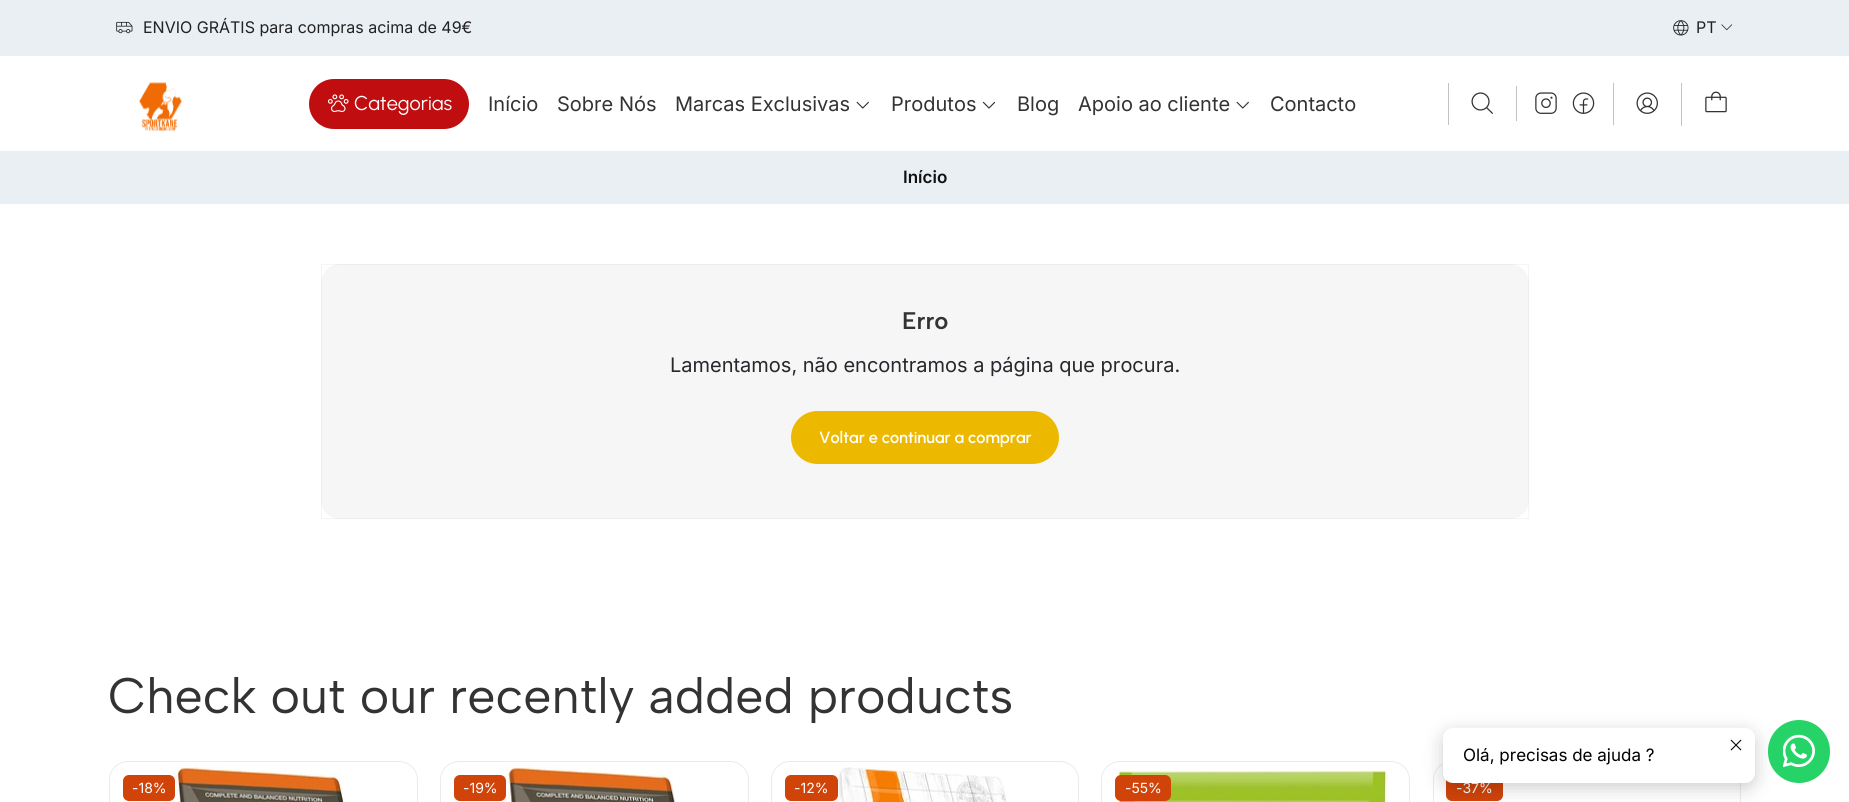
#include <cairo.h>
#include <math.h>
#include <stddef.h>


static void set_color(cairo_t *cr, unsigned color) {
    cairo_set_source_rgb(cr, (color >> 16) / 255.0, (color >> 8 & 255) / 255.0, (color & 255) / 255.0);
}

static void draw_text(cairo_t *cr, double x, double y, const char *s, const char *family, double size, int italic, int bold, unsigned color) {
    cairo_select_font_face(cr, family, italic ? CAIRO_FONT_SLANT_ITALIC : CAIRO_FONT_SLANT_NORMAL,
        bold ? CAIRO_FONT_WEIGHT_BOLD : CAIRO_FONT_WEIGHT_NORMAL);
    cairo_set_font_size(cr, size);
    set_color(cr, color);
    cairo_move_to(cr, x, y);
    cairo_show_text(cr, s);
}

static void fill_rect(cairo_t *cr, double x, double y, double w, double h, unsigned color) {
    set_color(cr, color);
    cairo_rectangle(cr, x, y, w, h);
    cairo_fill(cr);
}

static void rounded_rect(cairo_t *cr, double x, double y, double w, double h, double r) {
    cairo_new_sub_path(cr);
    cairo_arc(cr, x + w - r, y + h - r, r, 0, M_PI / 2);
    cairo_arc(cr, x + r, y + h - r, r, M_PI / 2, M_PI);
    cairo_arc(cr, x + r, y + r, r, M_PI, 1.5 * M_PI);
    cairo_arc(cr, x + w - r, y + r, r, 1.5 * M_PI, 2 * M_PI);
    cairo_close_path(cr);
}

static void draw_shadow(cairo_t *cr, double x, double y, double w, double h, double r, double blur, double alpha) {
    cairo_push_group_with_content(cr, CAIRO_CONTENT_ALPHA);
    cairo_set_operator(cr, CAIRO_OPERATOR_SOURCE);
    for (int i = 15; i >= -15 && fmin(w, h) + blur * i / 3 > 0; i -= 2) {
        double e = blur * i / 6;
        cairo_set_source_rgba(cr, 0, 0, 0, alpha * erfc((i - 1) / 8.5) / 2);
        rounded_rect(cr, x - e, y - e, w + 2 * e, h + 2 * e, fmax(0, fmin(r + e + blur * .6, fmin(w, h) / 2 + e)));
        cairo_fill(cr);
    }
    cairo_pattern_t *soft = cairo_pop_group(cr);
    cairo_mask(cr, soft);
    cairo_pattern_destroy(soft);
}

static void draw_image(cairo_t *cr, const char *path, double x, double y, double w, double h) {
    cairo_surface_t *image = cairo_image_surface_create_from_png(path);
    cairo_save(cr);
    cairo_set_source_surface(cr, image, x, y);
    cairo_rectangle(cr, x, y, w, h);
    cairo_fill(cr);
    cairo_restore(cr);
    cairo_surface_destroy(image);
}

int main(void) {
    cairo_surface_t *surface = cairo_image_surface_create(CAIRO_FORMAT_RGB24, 1849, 802);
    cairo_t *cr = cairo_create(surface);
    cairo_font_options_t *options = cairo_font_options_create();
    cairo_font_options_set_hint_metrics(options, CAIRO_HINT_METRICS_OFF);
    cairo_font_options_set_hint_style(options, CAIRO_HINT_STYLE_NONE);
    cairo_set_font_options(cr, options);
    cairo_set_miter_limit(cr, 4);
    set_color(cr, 0xFFFFFF);
    cairo_paint(cr);
    fill_rect(cr, 0, 0, 1849, 56, 0xEAEFF3);
    draw_image(cr, "assets/img1.png", 116, 21, 17, 13);
    draw_text(cr, 143, 33, "ENVIO GRÁTIS para compras acima de 49€", "Inter", 16, 0, 0, 0x222222);
    draw_image(cr, "assets/img2.png", 1673, 20, 16, 16);
    draw_text(cr, 1696, 33, "PT", "Inter", 16, 0, 0, 0x222222);
    draw_image(cr, "assets/img3.png", 1721, 24, 12, 7);
    draw_image(cr, "assets/img4.png", 138, 82, 44, 50);
    set_color(cr, 0xBF0D10);
    rounded_rect(cr, 309, 79, 160, 50, 25);
    cairo_fill(cr);
    draw_image(cr, "assets/img5.png", 328, 94, 21, 19);
    draw_text(cr, 354, 110, "Categorias", "Urbanist", 20, 0, 0, 0xFFFFFF);
    draw_text(cr, 488, 111, "Início", "Inter", 20, 0, 0, 0x333333);
    draw_text(cr, 557, 111, "Sobre Nós", "Inter", 20, 0, 0, 0x333333);
    draw_text(cr, 675, 111, "Marcas Exclusivas", "Inter", 20, 0, 0, 0x333333);
    draw_image(cr, "assets/img6.png", 856, 101, 13, 8);
    draw_text(cr, 891, 111, "Produtos", "Inter", 20, 0, 0, 0x333333);
    draw_image(cr, "assets/img7.png", 982, 101, 14, 8);
    draw_text(cr, 1017, 111, "Blog", "Inter", 20, 0, 0, 0x333333);
    draw_text(cr, 1078, 111, "Apoio ao cliente", "Inter", 20, 0, 0, 0x333333);
    draw_image(cr, "assets/img6.png", 1236, 101, 13, 8);
    draw_text(cr, 1270, 111, "Contacto", "Inter", 20, 0, 0, 0x333333);
    fill_rect(cr, 1448, 83, 1, 42, 0xC2C2C2);
    draw_image(cr, "assets/img8.png", 1471, 92, 22, 22);
    fill_rect(cr, 1516, 86, 1, 35, 0xC2C2C2);
    draw_image(cr, "assets/img9.png", 1535, 92, 22, 22);
    draw_image(cr, "assets/img10.png", 1572, 92, 23, 22);
    fill_rect(cr, 1613, 83, 1, 42, 0xC2C2C2);
    draw_image(cr, "assets/img11.png", 1636, 92, 22, 22);
    fill_rect(cr, 1681, 83, 1, 43, 0xC2C2C2);
    draw_image(cr, "assets/img12.png", 1705, 91, 22, 22);
    fill_rect(cr, 0, 151, 1849, 53, 0xEAEFF3);
    draw_text(cr, 903, 183, "Início", "Inter SemiBold", 17, 0, 0, 0x111111);
    set_color(cr, 0xF6F6F6);
    rounded_rect(cr, 321, 264, 1208, 255, 19);
    cairo_fill(cr);
    cairo_rectangle(cr, 321.5, 264.5, 1207, 254);
    cairo_set_source_rgba(cr, 0.2, 0.2, 0.2, 0.05);
    cairo_set_line_width(cr, 1);
    cairo_stroke(cr);
    draw_text(cr, 902, 329, "Erro", "Albert Sans SemiBold", 24, 0, 0, 0x333333);
    draw_text(cr, 670, 372, "Lamentamos, não encontramos a página que procura.", "Inter", 20, 0, 0, 0x25282C);
    set_color(cr, 0xEDB800);
    rounded_rect(cr, 791, 411, 268, 53, 26.5);
    cairo_fill(cr);
    draw_text(cr, 819, 443, "Voltar e continuar a comprar", "Urbanist SemiBold", 16.25, 0, 0, 0xFFFFFF);
    draw_text(cr, 108, 713, "Check out our recently added products", "Albert Sans", 50, 0, 0, 0x333333);
    rounded_rect(cr, 109.5, 761.5, 308, 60, 18.5);
    set_color(cr, 0xEBEBEB);
    cairo_stroke(cr);
    draw_image(cr, "assets/img13.png", 173, 763, 173, 39);
    set_color(cr, 0xD0440A);
    rounded_rect(cr, 123, 775, 52, 26, 6);
    cairo_fill(cr);
    draw_text(cr, 132, 793, "-18%", "Inter", 14, 0, 0, 0xFFFFFF);
    rounded_rect(cr, 440.5, 761.5, 308, 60, 18.5);
    set_color(cr, 0xEBEBEB);
    cairo_stroke(cr);
    set_color(cr, 0xD0440A);
    rounded_rect(cr, 454, 775, 52, 26, 6);
    cairo_fill(cr);
    draw_text(cr, 463, 793, "-19%", "Inter", 14, 0, 0, 0xFFFFFF);
    draw_image(cr, "assets/img14.png", 507, 763, 169, 39);
    rounded_rect(cr, 771.5, 761.5, 307, 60, 18.5);
    set_color(cr, 0xEBEBEB);
    cairo_stroke(cr);
    set_color(cr, 0xD0440A);
    rounded_rect(cr, 785, 775, 53, 26, 6);
    cairo_fill(cr);
    draw_text(cr, 794, 793, "-12%", "Inter", 14, 0, 0, 0xFFFFFF);
    draw_image(cr, "assets/img15.png", 838, 767, 169, 35);
    rounded_rect(cr, 1101.5, 761.5, 308, 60, 18.5);
    set_color(cr, 0xEBEBEB);
    cairo_stroke(cr);
    draw_image(cr, "assets/img16.png", 1117, 769, 271, 33);
    set_color(cr, 0xD0440A);
    rounded_rect(cr, 1115, 775, 56, 26, 6);
    cairo_fill(cr);
    draw_text(cr, 1125, 793, "-55%", "Inter", 14, 0, 0, 0xFFFFFF);
    rounded_rect(cr, 1433.5, 761.5, 307, 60, 18.5);
    set_color(cr, 0xEBEBEB);
    cairo_stroke(cr);
    set_color(cr, 0xD0440A);
    rounded_rect(cr, 1446, 775, 57, 26, 6);
    cairo_fill(cr);
    draw_text(cr, 1456, 793, "-37%", "Inter", 14, 0, 0, 0xFFFFFF);
    set_color(cr, 0x000000);
    draw_shadow(cr, 1443, 733, 312, 55, 10, 9.5, 0.2);
    set_color(cr, 0xFFFFFF);
    rounded_rect(cr, 1443, 728, 312, 55, 10);
    cairo_fill(cr);
    draw_image(cr, "assets/img17.png", 1730, 739, 12, 12);
    draw_text(cr, 1463, 761, "Olá, precisas de ajuda ?", "Inter", 17, 0, 0, 0x000000);
    set_color(cr, 0x25D366);
    rounded_rect(cr, 1768, 720, 62, 63, 31);
    cairo_fill(cr);
    draw_image(cr, "assets/img18.png", 1783, 734, 32, 34);
    cairo_surface_write_to_png(surface, "output.png");
    cairo_font_options_destroy(options);
    cairo_destroy(cr);
    cairo_surface_destroy(surface);
    return 0;
}
